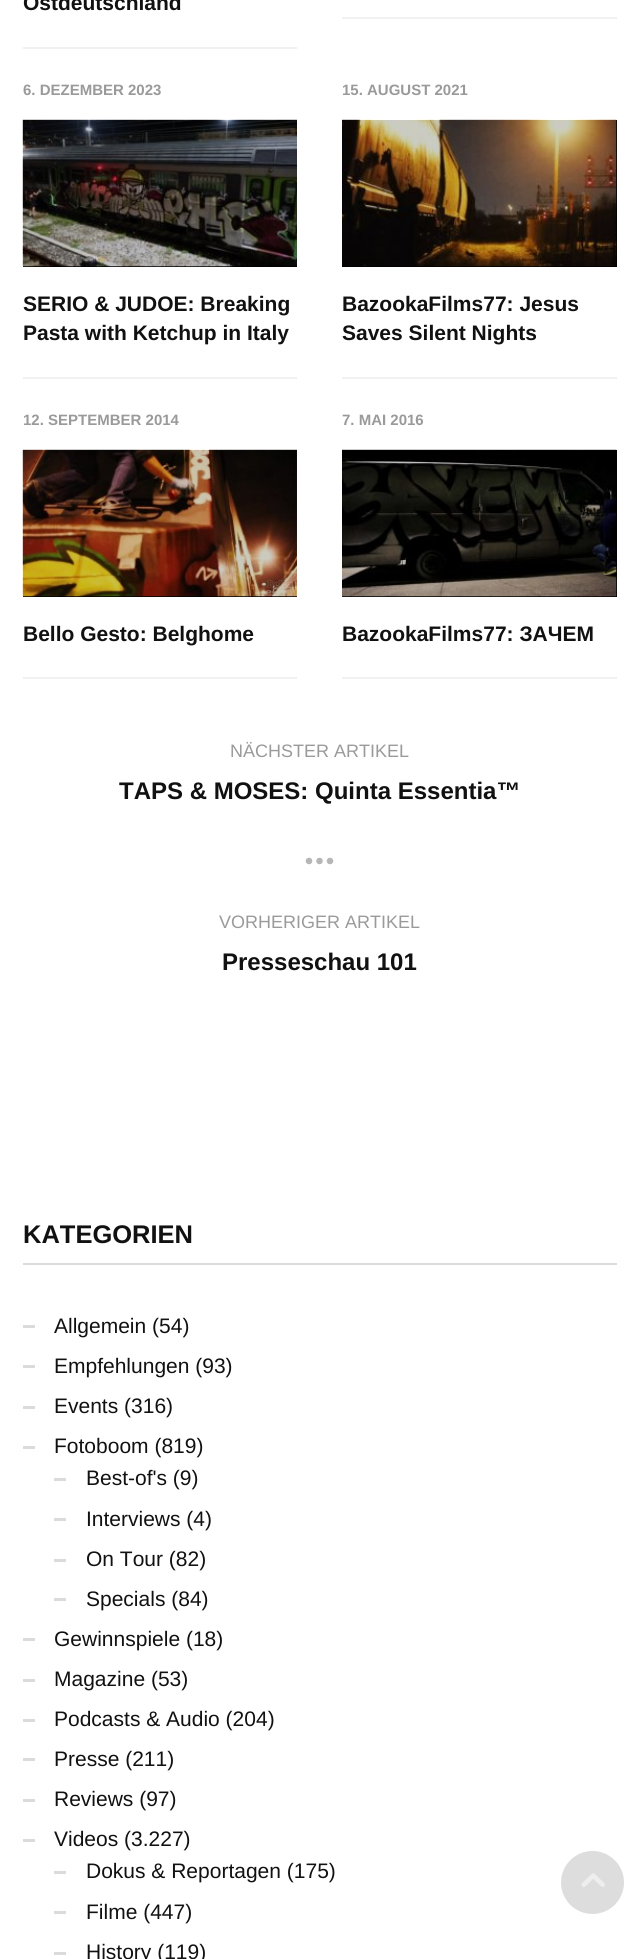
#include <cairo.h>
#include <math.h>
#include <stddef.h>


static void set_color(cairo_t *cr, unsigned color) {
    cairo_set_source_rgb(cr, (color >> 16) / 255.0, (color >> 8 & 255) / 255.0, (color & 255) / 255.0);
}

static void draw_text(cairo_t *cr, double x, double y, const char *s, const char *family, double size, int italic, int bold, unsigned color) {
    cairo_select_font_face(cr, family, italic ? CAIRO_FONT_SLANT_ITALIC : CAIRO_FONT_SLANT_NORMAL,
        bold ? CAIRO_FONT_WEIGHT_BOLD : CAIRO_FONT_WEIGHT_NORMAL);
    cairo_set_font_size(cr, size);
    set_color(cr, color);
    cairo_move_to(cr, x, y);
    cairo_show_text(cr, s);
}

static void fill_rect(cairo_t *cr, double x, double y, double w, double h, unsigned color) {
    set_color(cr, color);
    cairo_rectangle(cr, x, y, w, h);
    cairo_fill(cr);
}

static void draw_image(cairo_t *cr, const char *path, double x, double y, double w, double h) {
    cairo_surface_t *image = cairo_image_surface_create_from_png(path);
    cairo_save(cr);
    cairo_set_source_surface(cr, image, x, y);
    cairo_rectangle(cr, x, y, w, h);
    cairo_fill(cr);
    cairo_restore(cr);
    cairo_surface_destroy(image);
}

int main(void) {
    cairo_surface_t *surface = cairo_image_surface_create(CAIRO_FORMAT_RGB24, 638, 1959);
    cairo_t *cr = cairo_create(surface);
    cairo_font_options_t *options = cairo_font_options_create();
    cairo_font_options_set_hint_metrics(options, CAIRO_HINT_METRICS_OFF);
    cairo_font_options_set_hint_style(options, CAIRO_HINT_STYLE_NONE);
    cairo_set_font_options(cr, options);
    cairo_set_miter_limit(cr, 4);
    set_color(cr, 0xFFFFFF);
    cairo_paint(cr);
    fill_rect(cr, 23, 47, 274, 2, 0xF1F1F1);
    draw_text(cr, 23, 10, "Ostdeutschland", "Liberation Sans", 21, 0, 1, 0x111111);
    fill_rect(cr, 342, 17, 275, 2, 0xF1F1F1);
    fill_rect(cr, 23, 377, 274, 2, 0xF1F1F1);
    draw_text(cr, 23, 95, "6. DEZEMBER 2023", "Liberation Sans", 15, 0, 1, 0x9A9A9A);
    fill_rect(cr, 23, 120, 274, 147, 0x000000);
    draw_image(cr, "assets/img1.png", 22, 119, 275, 148);
    draw_text(cr, 23, 311, "SERIO & JUDOE: Breaking", "Liberation Sans", 21, 0, 1, 0x111111);
    draw_text(cr, 23, 340, "Pasta with Ketchup in Italy", "Liberation Sans", 21, 0, 1, 0x111111);
    fill_rect(cr, 342, 377, 275, 2, 0xF1F1F1);
    draw_text(cr, 342, 95, "15. AUGUST 2021", "Liberation Sans", 15, 0, 1, 0x9A9A9A);
    fill_rect(cr, 342, 120, 275, 147, 0x000000);
    draw_image(cr, "assets/img2.png", 342, 119, 275, 148);
    draw_text(cr, 342, 311, "BazookaFilms77: Jesus", "Liberation Sans", 21, 0, 1, 0x111111);
    draw_text(cr, 342, 340, "Saves Silent Nights", "Liberation Sans", 21, 0, 1, 0x111111);
    fill_rect(cr, 23, 677, 274, 2, 0xF1F1F1);
    draw_text(cr, 23, 425, "12. SEPTEMBER 2014", "Liberation Sans", 15, 0, 1, 0x9A9A9A);
    fill_rect(cr, 23, 450, 274, 147, 0x000000);
    draw_image(cr, "assets/img3.png", 22, 449, 275, 148);
    draw_text(cr, 23, 641, "Bello Gesto: Belghome", "Liberation Sans", 21, 0, 1, 0x111111);
    fill_rect(cr, 342, 677, 275, 2, 0xF1F1F1);
    draw_text(cr, 342, 425, "7. MAI 2016", "Liberation Sans", 15, 0, 1, 0x9A9A9A);
    fill_rect(cr, 342, 450, 275, 147, 0x000000);
    draw_image(cr, "assets/img4.png", 342, 449, 275, 148);
    draw_text(cr, 342, 641, "BazookaFilms77: ЗАЧЕМ", "Liberation Sans", 21, 0, 1, 0x111111);
    draw_text(cr, 230, 757, "NÄCHSTER ARTIKEL", "Liberation Sans", 18, 0, 0, 0x9A9A9A);
    draw_text(cr, 119, 799, "TAPS & MOSES: Quinta Essentia™", "Liberation Sans", 24, 0, 1, 0x111111);
    draw_image(cr, "assets/img5.png", 305, 857, 29, 8);
    draw_text(cr, 219, 928, "VORHERIGER ARTIKEL", "Liberation Sans", 18, 0, 0, 0x9A9A9A);
    draw_text(cr, 222, 970, "Presseschau 101", "Liberation Sans", 24, 0, 1, 0x111111);
    fill_rect(cr, 23, 1263, 594, 2, 0xDBDBDB);
    draw_text(cr, 23, 1243, "KATEGORIEN", "Liberation Sans", 25.5, 0, 1, 0x111111);
    fill_rect(cr, 23, 1325, 12, 3, 0xDBDBDB);
    draw_text(cr, 54, 1333, "Allgemein (54)", "Liberation Sans", 21, 0, 0, 0x111111);
    fill_rect(cr, 23, 1365, 12, 3, 0xDBDBDB);
    draw_text(cr, 54, 1373, "Empfehlungen (93)", "Liberation Sans", 21, 0, 0, 0x111111);
    fill_rect(cr, 23, 1406, 12, 3, 0xDBDBDB);
    draw_text(cr, 54, 1413, "Events (316)", "Liberation Sans", 21, 0, 0, 0x111111);
    fill_rect(cr, 23, 1446, 12, 3, 0xDBDBDB);
    draw_text(cr, 54, 1453, "Fotoboom (819)", "Liberation Sans", 21, 0, 0, 0x111111);
    fill_rect(cr, 54, 1478, 12, 3, 0xDBDBDB);
    draw_text(cr, 86, 1485, "Best-of's (9)", "Liberation Sans", 21, 0, 0, 0x111111);
    fill_rect(cr, 54, 1518, 12, 3, 0xDBDBDB);
    draw_text(cr, 86, 1526, "Interviews (4)", "Liberation Sans", 21, 0, 0, 0x111111);
    fill_rect(cr, 54, 1559, 12, 3, 0xDBDBDB);
    draw_text(cr, 86, 1566, "On Tour (82)", "Liberation Sans", 21, 0, 0, 0x111111);
    fill_rect(cr, 54, 1598, 12, 3, 0xDBDBDB);
    draw_text(cr, 86, 1606, "Specials (84)", "Liberation Sans", 21, 0, 0, 0x111111);
    fill_rect(cr, 23, 1638, 12, 3, 0xDBDBDB);
    draw_text(cr, 54, 1646, "Gewinnspiele (18)", "Liberation Sans", 21, 0, 0, 0x111111);
    fill_rect(cr, 23, 1679, 12, 3, 0xDBDBDB);
    draw_text(cr, 54, 1686, "Magazine (53)", "Liberation Sans", 21, 0, 0, 0x111111);
    fill_rect(cr, 23, 1719, 12, 3, 0xDBDBDB);
    draw_text(cr, 54, 1726, "Podcasts & Audio (204)", "Liberation Sans", 21, 0, 0, 0x111111);
    fill_rect(cr, 23, 1758, 12, 3, 0xDBDBDB);
    draw_text(cr, 54, 1766, "Presse (211)", "Liberation Sans", 21, 0, 0, 0x111111);
    fill_rect(cr, 23, 1799, 12, 3, 0xDBDBDB);
    draw_text(cr, 54, 1806, "Reviews (97)", "Liberation Sans", 21, 0, 0, 0x111111);
    fill_rect(cr, 23, 1839, 12, 3, 0xDBDBDB);
    draw_text(cr, 54, 1846, "Videos (3.227)", "Liberation Sans", 21, 0, 0, 0x111111);
    fill_rect(cr, 54, 1871, 12, 3, 0xDBDBDB);
    draw_text(cr, 86, 1878, "Dokus & Reportagen (175)", "Liberation Sans", 21, 0, 0, 0x111111);
    fill_rect(cr, 54, 1911, 12, 3, 0xDBDBDB);
    draw_text(cr, 86, 1919, "Filme (447)", "Liberation Sans", 21, 0, 0, 0x111111);
    fill_rect(cr, 54, 1952, 12, 3, 0xDBDBDB);
    draw_text(cr, 86, 1959, "History (119)", "Liberation Sans", 21, 0, 0, 0x111111);
    set_color(cr, 0xDDDDDD);
    cairo_new_path(cr);
    cairo_arc(cr, 592.5, 1882.5, 31.5, 0, 2 * M_PI);
    cairo_fill(cr);
    draw_image(cr, "assets/img6.png", 581, 1873, 24, 14);
    cairo_surface_write_to_png(surface, "output.png");
    cairo_font_options_destroy(options);
    cairo_destroy(cr);
    cairo_surface_destroy(surface);
    return 0;
}
